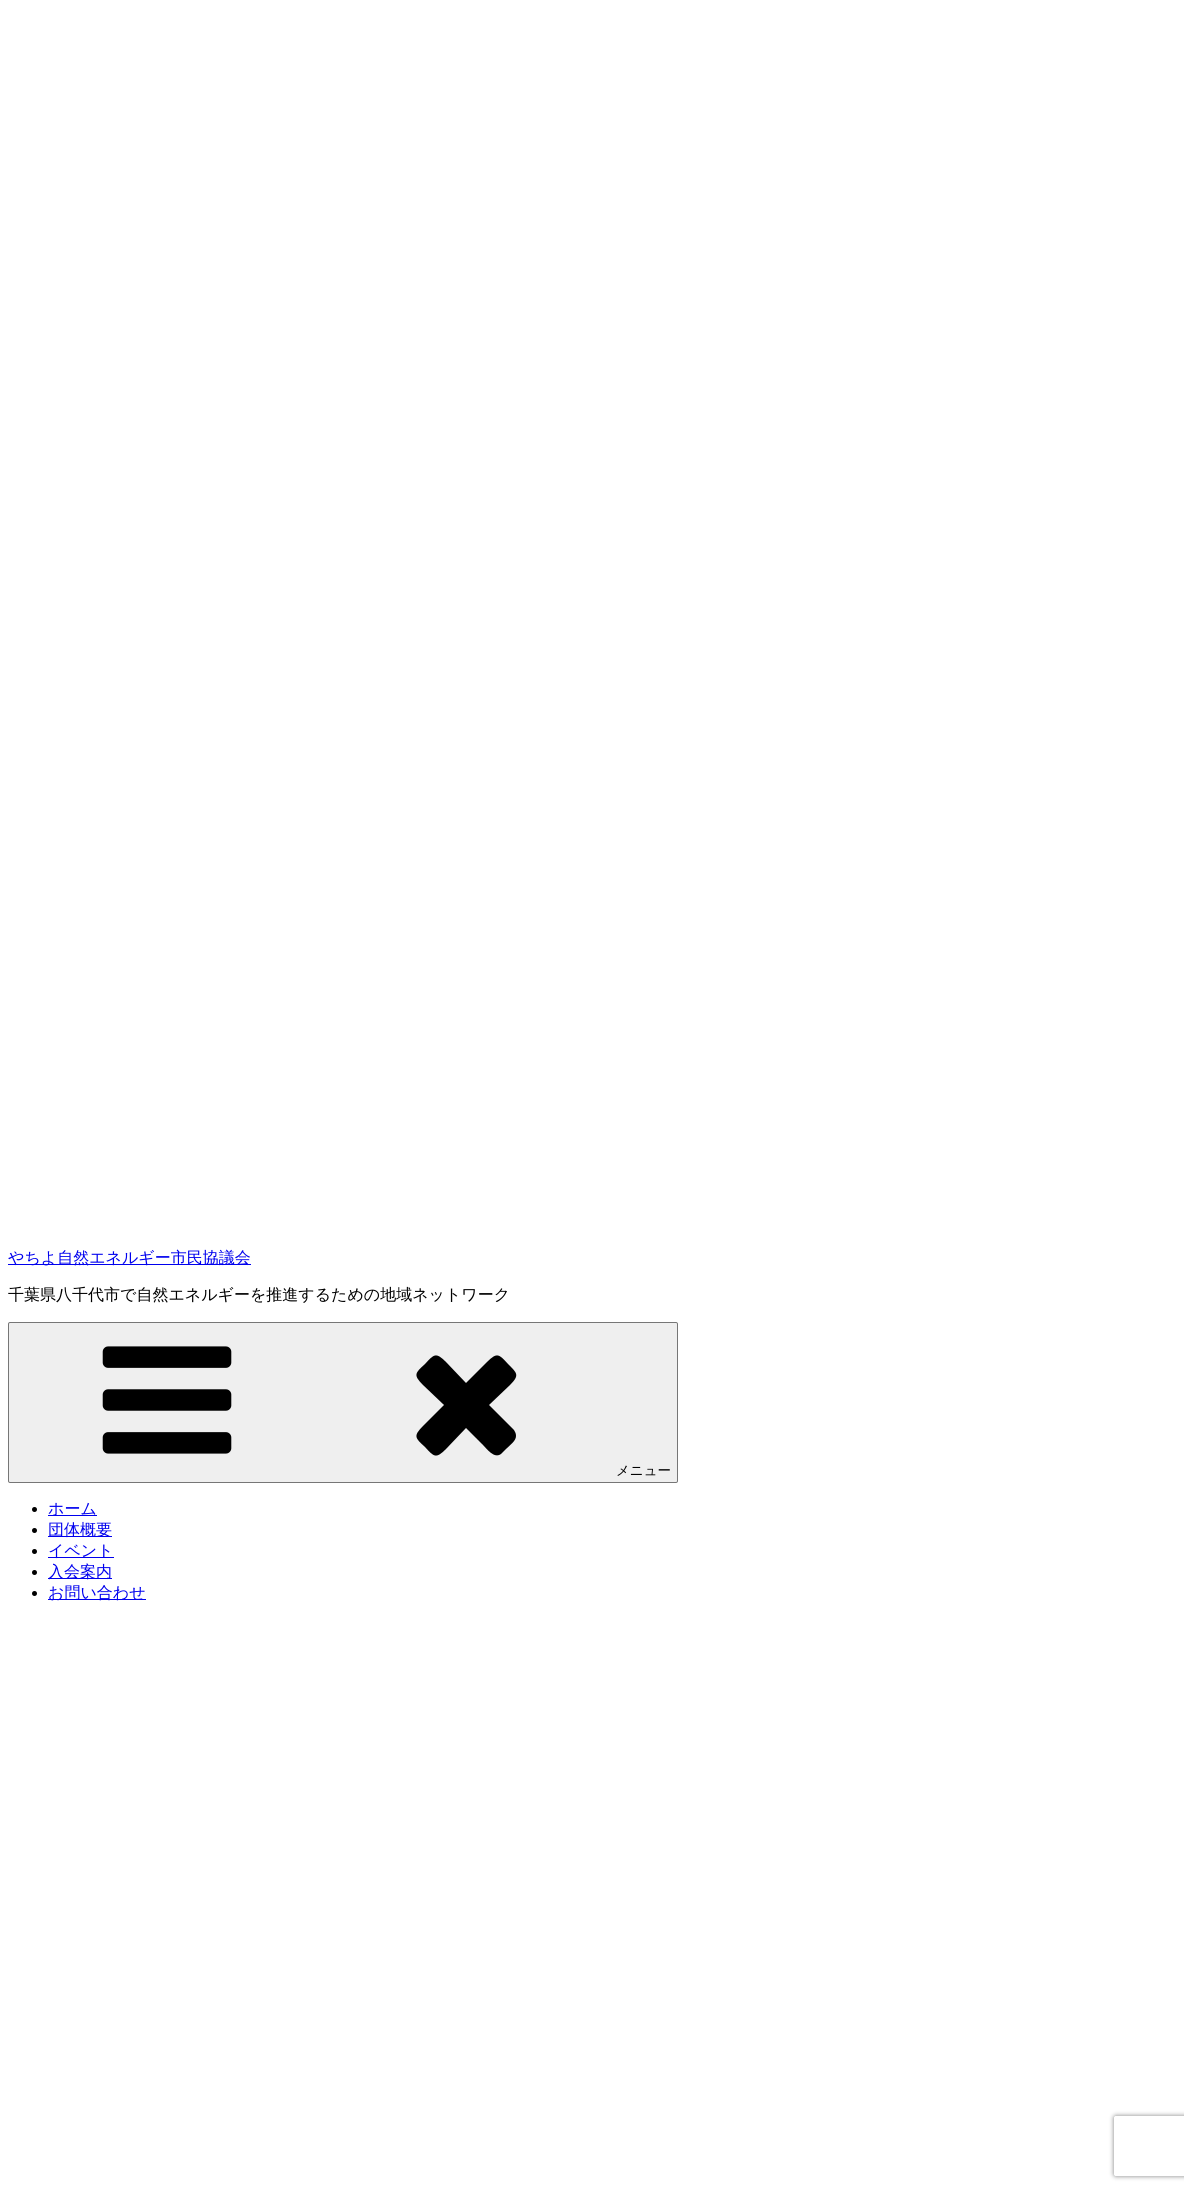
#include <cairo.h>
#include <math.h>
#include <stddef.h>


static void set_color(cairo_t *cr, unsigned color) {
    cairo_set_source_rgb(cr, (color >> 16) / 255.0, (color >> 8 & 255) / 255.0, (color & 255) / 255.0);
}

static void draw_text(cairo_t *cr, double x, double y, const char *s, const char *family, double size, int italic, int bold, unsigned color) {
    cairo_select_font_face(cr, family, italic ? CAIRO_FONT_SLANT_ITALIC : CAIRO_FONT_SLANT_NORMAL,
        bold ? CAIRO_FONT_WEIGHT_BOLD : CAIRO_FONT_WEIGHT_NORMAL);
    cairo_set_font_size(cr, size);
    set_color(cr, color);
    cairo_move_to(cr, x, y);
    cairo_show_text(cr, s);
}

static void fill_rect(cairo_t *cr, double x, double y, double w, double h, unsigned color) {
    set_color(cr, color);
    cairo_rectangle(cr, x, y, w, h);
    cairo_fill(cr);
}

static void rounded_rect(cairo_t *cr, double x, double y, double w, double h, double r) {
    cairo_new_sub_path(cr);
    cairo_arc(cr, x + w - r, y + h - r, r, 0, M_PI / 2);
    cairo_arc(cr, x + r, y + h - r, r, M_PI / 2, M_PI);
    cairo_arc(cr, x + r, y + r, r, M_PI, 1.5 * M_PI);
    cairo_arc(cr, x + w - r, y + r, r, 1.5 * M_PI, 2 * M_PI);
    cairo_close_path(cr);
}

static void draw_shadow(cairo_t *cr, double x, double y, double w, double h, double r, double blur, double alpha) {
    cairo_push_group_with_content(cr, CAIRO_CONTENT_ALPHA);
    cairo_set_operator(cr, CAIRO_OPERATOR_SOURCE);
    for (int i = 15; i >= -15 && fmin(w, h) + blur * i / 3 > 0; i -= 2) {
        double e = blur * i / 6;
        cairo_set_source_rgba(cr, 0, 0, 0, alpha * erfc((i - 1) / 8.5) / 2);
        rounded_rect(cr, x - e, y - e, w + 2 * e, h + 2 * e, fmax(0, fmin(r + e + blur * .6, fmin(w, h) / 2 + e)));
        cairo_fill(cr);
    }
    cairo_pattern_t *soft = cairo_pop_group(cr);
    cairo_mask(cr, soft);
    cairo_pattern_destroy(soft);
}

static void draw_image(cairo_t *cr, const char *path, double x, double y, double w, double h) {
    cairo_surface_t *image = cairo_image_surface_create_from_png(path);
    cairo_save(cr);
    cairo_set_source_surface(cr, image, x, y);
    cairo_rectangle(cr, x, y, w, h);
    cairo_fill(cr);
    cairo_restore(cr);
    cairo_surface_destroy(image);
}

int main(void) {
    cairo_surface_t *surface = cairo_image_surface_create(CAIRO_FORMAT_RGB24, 1184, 2190);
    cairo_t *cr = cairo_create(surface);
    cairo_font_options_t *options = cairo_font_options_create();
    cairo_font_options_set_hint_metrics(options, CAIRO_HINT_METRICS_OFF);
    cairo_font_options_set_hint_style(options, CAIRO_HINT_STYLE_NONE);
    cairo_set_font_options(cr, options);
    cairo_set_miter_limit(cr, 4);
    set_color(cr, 0xFFFFFF);
    cairo_paint(cr);
    fill_rect(cr, 8, 1264, 243, 1, 0x0000EE);
    draw_text(cr, 8, 1263, "やちよ自然エネルギー市民協議会", "WenQuanYi Zen Hei Medium", 16, 0, 0, 0x0000EE);
    draw_text(cr, 8, 1300, "千葉県八千代市で自然エネルギーを推進するための地域ネットワーク", "WenQuanYi Zen Hei Medium", 16, 0, 0, 0x000000);
    set_color(cr, 0xEFEFEF);
    rounded_rect(cr, 8.5, 1322.5, 669, 160, 1.5);
    cairo_fill_preserve(cr);
    set_color(cr, 0x767676);
    cairo_set_line_width(cr, 1);
    cairo_stroke(cr);
    draw_image(cr, "assets/img1.png", 102, 1346, 130, 108);
    set_color(cr, 0x000000);
    cairo_new_path(cr);
    cairo_move_to(cr, 516, 1436);
    cairo_curve_to(cr, 516, 1441, 510, 1445, 506, 1449);
    cairo_line_to(cr, 501, 1454);
    cairo_curve_to(cr, 494, 1459, 487, 1449, 483, 1445);
    cairo_line_to(cr, 466, 1428);
    cairo_line_to(cr, 446, 1449);
    cairo_curve_to(cr, 436, 1459, 434, 1457, 425, 1447);
    cairo_curve_to(cr, 415, 1438, 413, 1436, 423, 1426);
    cairo_line_to(cr, 444, 1405);
    cairo_line_to(cr, 423, 1385);
    cairo_curve_to(cr, 413, 1375, 415, 1373, 425, 1364);
    cairo_curve_to(cr, 434, 1354, 436, 1352, 446, 1362);
    cairo_line_to(cr, 466, 1383);
    cairo_line_to(cr, 487, 1362);
    cairo_curve_to(cr, 497, 1352, 499, 1354, 508, 1364);
    cairo_curve_to(cr, 517, 1373, 520, 1375, 510, 1385);
    cairo_line_to(cr, 489, 1405);
    cairo_line_to(cr, 514, 1430);
    cairo_curve_to(cr, 515, 1432, 516, 1433, 516, 1436);
    cairo_close_path(cr);
    cairo_fill(cr);
    draw_text(cr, 616, 1475, "メニュー", "WenQuanYi Zen Hei Medium", 13.5, 0, 0, 0x000000);
    cairo_new_path(cr);
    cairo_arc(cr, 34.5, 1509.5, 2.5, 0, 2 * M_PI);
    cairo_fill(cr);
    fill_rect(cr, 48, 1515, 49, 1, 0x0000EE);
    draw_text(cr, 48, 1514, "ホーム", "WenQuanYi Zen Hei Medium", 16, 0, 0, 0x0000EE);
    set_color(cr, 0x000000);
    cairo_new_path(cr);
    cairo_arc(cr, 34.5, 1530.5, 2.5, 0, 2 * M_PI);
    cairo_fill(cr);
    fill_rect(cr, 48, 1536, 64, 1, 0x0000EE);
    draw_text(cr, 48, 1535, "団体概要", "WenQuanYi Zen Hei Medium", 16, 0, 0, 0x0000EE);
    set_color(cr, 0x000000);
    cairo_new_path(cr);
    cairo_arc(cr, 34.5, 1551.5, 2.5, 0, 2 * M_PI);
    cairo_fill(cr);
    fill_rect(cr, 48, 1557, 66, 1, 0x0000EE);
    draw_text(cr, 48, 1556, "イベント", "WenQuanYi Zen Hei Medium", 16, 0, 0, 0x0000EE);
    set_color(cr, 0x000000);
    cairo_new_path(cr);
    cairo_arc(cr, 34.5, 1572.5, 2.5, 0, 2 * M_PI);
    cairo_fill(cr);
    fill_rect(cr, 48, 1578, 64, 1, 0x0000EE);
    draw_text(cr, 48, 1577, "入会案内", "WenQuanYi Zen Hei Medium", 16, 0, 0, 0x0000EE);
    set_color(cr, 0x000000);
    cairo_new_path(cr);
    cairo_arc(cr, 34.5, 1593.5, 2.5, 0, 2 * M_PI);
    cairo_fill(cr);
    fill_rect(cr, 48, 1599, 98, 1, 0x0000EE);
    draw_text(cr, 48, 1598, "お問い合わせ", "WenQuanYi Zen Hei Medium", 16, 0, 0, 0x0000EE);
    cairo_save(cr);
    cairo_set_fill_rule(cr, CAIRO_FILL_RULE_EVEN_ODD);
    cairo_new_path(cr);
    cairo_move_to(cr, 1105, 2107);
    cairo_line_to(cr, 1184, 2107);
    cairo_line_to(cr, 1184, 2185);
    cairo_line_to(cr, 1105, 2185);
    cairo_close_path(cr);
    cairo_move_to(cr, 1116, 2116);
    cairo_line_to(cr, 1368, 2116);
    cairo_curve_to(cr, 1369, 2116, 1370, 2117, 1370, 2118);
    cairo_line_to(cr, 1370, 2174);
    cairo_curve_to(cr, 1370, 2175, 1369, 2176, 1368, 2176);
    cairo_line_to(cr, 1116, 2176);
    cairo_curve_to(cr, 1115, 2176, 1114, 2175, 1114, 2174);
    cairo_line_to(cr, 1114, 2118);
    cairo_curve_to(cr, 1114, 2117, 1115, 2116, 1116, 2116);
    cairo_close_path(cr);
    cairo_clip(cr);
    set_color(cr, 0x808080);
    draw_shadow(cr, 1114, 2116, 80, 60, 2, 2.5, 1);
    cairo_restore(cr);
    cairo_surface_write_to_png(surface, "output.png");
    cairo_font_options_destroy(options);
    cairo_destroy(cr);
    cairo_surface_destroy(surface);
    return 0;
}
